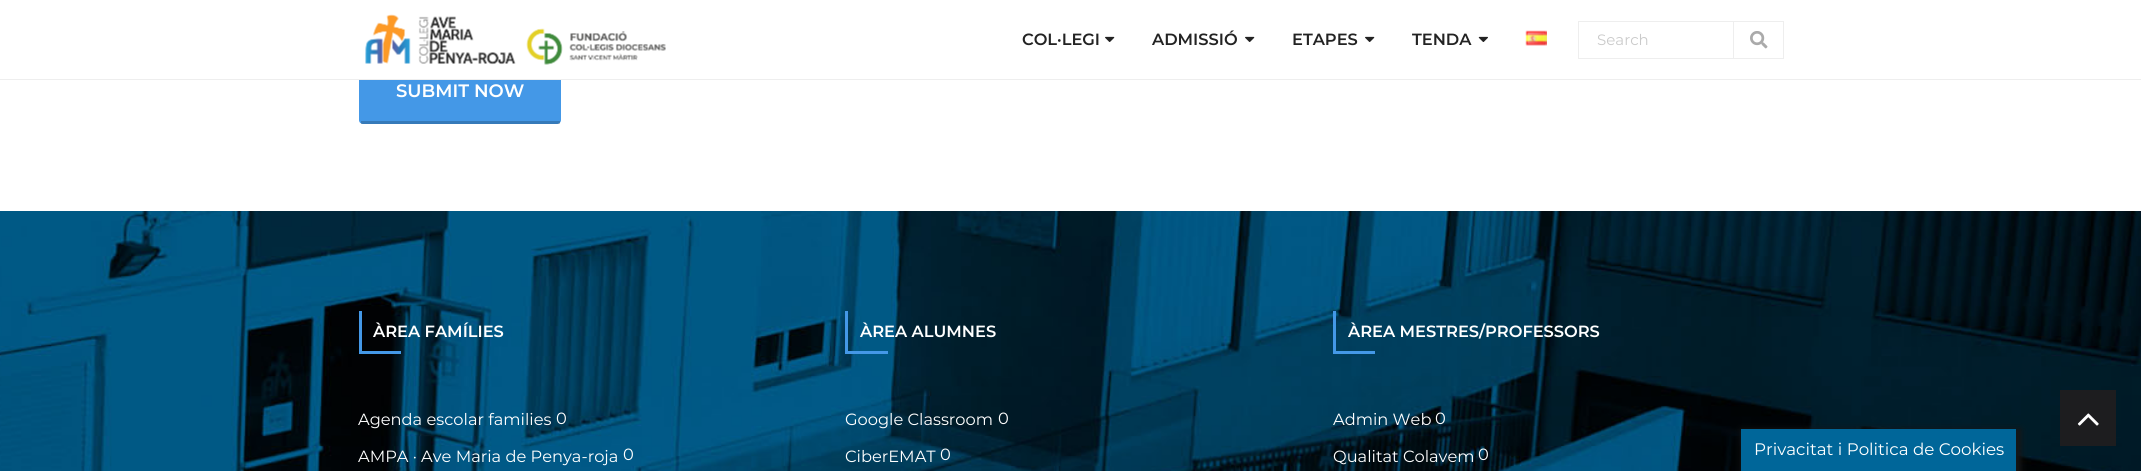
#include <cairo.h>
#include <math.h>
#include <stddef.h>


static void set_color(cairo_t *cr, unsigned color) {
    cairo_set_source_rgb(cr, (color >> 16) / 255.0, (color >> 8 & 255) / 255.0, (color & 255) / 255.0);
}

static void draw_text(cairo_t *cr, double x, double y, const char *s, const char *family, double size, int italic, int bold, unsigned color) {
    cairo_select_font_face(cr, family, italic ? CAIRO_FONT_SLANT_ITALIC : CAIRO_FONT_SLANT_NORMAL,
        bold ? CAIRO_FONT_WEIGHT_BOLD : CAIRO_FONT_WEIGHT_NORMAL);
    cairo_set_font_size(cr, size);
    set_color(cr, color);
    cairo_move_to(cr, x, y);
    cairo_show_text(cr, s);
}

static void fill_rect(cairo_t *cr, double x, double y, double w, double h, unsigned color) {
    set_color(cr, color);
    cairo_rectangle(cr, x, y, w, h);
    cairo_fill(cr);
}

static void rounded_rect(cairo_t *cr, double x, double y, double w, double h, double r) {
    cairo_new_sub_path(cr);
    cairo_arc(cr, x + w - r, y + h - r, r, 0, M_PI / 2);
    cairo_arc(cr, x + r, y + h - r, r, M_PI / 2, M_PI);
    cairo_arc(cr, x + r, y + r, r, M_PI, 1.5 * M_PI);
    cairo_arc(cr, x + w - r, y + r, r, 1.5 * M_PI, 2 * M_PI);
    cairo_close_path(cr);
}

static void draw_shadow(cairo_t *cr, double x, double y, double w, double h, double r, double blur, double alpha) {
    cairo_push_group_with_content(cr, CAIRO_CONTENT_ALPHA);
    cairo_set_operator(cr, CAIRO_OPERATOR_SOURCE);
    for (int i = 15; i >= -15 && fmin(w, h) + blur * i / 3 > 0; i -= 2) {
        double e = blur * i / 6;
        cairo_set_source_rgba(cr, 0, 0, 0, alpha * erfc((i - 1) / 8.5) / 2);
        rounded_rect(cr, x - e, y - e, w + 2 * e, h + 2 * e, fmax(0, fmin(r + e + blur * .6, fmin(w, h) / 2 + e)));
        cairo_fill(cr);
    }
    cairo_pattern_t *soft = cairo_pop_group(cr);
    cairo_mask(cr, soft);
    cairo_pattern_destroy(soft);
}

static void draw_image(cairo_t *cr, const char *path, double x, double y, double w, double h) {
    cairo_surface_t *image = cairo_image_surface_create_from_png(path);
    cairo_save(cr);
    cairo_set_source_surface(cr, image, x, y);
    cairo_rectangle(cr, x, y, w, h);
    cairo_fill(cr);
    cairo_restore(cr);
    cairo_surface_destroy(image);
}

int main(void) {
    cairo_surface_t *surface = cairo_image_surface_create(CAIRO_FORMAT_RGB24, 2141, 471);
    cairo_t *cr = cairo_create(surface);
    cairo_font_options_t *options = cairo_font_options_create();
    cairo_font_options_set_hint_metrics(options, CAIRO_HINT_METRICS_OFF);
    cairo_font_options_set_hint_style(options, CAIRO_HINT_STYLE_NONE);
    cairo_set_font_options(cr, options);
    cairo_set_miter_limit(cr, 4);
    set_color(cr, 0xFFFFFF);
    cairo_paint(cr);
    set_color(cr, 0x4498E7);
    rounded_rect(cr, 359, 64, 202, 60, 4);
    cairo_fill(cr);
    fill_rect(cr, 359, 64, 202, 15, 0xFFFFFF);
    fill_rect(cr, 0, 79, 2141, 1, 0xEEEEEE);
    draw_image(cr, "assets/img1.png", 365, 14, 301, 51);
    draw_text(cr, 1022, 45, "COL·LEGI", "Montserrat SemiBold", 16.25, 0, 0, 0x232323);
    draw_image(cr, "assets/img2.png", 1105, 36, 10, 6);
    draw_text(cr, 1152, 45, "ADMISSIÓ", "Montserrat SemiBold", 16.25, 0, 0, 0x232323);
    draw_image(cr, "assets/img2.png", 1245, 36, 10, 6);
    draw_text(cr, 1292, 45, "ETAPES", "Montserrat SemiBold", 16.25, 0, 0, 0x232323);
    draw_image(cr, "assets/img2.png", 1365, 36, 10, 6);
    draw_text(cr, 1412, 45, "TENDA", "Montserrat SemiBold", 16.25, 0, 0, 0x232323);
    draw_image(cr, "assets/img3.png", 1478, 36, 10, 6);
    draw_image(cr, "assets/img4.png", 1525, 30, 22, 16);
    cairo_rectangle(cr, 1578.5, 21.5, 205, 37);
    set_color(cr, 0xEEEEEE);
    cairo_set_line_width(cr, 1);
    cairo_stroke(cr);
    draw_text(cr, 1597, 45, "Search", "Montserrat", 15, 0, 0, 0xCACACA);
    fill_rect(cr, 1733, 21, 1, 38, 0xEEEEEE);
    draw_image(cr, "assets/img5.png", 1750, 31, 18, 18);
    cairo_set_source_rgba(cr, 0, 0, 0, 0.2);
    cairo_rectangle(cr, 361, 121, 199, 3);
    cairo_fill(cr);
    draw_text(cr, 396, 97, "SUBMIT NOW", "Montserrat SemiBold", 18, 0, 0, 0xFFFFFF);
    draw_image(cr, "assets/img6.png", 0, 211, 2141, 260);
    fill_rect(cr, 359, 351, 42, 3, 0x4498E7);
    fill_rect(cr, 359, 311, 3, 43, 0x4498E7);
    draw_text(cr, 373, 337, "ÀREA FAMÍLIES", "Montserrat SemiBold", 16.25, 0, 0, 0xFFFFFF);
    draw_text(cr, 358, 425, "Agenda escolar families", "Montserrat", 16.25, 0, 0, 0xFFFFFF);
    draw_text(cr, 556, 424, "0", "Montserrat", 16.25, 0, 0, 0xFFFFFF);
    draw_text(cr, 358, 462, "AMPA · Ave Maria de Penya-roja", "Montserrat", 16.25, 0, 0, 0xFFFFFF);
    draw_text(cr, 623, 460, "0", "Montserrat", 16.25, 0, 0, 0xFFFFFF);
    fill_rect(cr, 845, 351, 43, 3, 0x4498E7);
    fill_rect(cr, 845, 311, 3, 43, 0x4498E7);
    draw_text(cr, 860, 337, "ÀREA ALUMNES", "Montserrat SemiBold", 16.25, 0, 0, 0xFFFFFF);
    draw_text(cr, 845, 425, "Google Classroom", "Montserrat", 16.25, 0, 0, 0xFFFFFF);
    draw_text(cr, 998, 424, "0", "Montserrat", 16.25, 0, 0, 0xFFFFFF);
    draw_text(cr, 845, 462, "CiberEMAT", "Montserrat", 16.25, 0, 0, 0xFFFFFF);
    draw_text(cr, 940, 460, "0", "Montserrat", 16.25, 0, 0, 0xFFFFFF);
    fill_rect(cr, 1333, 351, 42, 3, 0x4498E7);
    fill_rect(cr, 1333, 311, 3, 43, 0x4498E7);
    draw_text(cr, 1348, 337, "ÀREA MESTRES/PROFESSORS", "Montserrat SemiBold", 16.25, 0, 0, 0xFFFFFF);
    draw_text(cr, 1333, 425, "Admin Web", "Montserrat", 16.25, 0, 0, 0xFFFFFF);
    draw_text(cr, 1435, 424, "0", "Montserrat", 16.25, 0, 0, 0xFFFFFF);
    draw_text(cr, 1333, 462, "Qualitat Colavem", "Montserrat", 16.25, 0, 0, 0xFFFFFF);
    draw_text(cr, 1478, 460, "0", "Montserrat", 16.25, 0, 0, 0xFFFFFF);
    fill_rect(cr, 2060, 390, 56, 56, 0x1D1D1F);
    draw_image(cr, "assets/img7.png", 2077, 413, 22, 13);
    set_color(cr, 0x161616);
    draw_shadow(cr, 1741, 429, 280, 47, 0, 3, 1);
    fill_rect(cr, 1741, 429, 275, 42, 0x006699);
    draw_text(cr, 1754, 455, "Privacitat i Politica de Cookies", "Montserrat", 16.7, 0, 0, 0xFFFFFF);
    cairo_surface_write_to_png(surface, "output.png");
    cairo_font_options_destroy(options);
    cairo_destroy(cr);
    cairo_surface_destroy(surface);
    return 0;
}
